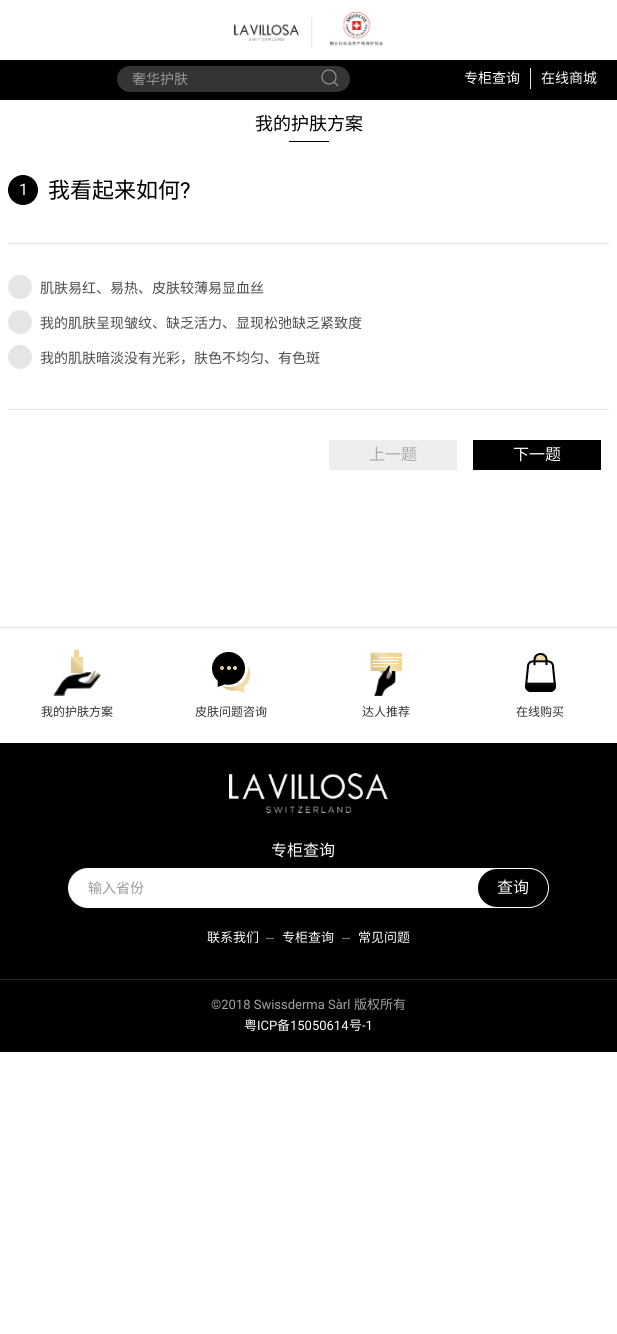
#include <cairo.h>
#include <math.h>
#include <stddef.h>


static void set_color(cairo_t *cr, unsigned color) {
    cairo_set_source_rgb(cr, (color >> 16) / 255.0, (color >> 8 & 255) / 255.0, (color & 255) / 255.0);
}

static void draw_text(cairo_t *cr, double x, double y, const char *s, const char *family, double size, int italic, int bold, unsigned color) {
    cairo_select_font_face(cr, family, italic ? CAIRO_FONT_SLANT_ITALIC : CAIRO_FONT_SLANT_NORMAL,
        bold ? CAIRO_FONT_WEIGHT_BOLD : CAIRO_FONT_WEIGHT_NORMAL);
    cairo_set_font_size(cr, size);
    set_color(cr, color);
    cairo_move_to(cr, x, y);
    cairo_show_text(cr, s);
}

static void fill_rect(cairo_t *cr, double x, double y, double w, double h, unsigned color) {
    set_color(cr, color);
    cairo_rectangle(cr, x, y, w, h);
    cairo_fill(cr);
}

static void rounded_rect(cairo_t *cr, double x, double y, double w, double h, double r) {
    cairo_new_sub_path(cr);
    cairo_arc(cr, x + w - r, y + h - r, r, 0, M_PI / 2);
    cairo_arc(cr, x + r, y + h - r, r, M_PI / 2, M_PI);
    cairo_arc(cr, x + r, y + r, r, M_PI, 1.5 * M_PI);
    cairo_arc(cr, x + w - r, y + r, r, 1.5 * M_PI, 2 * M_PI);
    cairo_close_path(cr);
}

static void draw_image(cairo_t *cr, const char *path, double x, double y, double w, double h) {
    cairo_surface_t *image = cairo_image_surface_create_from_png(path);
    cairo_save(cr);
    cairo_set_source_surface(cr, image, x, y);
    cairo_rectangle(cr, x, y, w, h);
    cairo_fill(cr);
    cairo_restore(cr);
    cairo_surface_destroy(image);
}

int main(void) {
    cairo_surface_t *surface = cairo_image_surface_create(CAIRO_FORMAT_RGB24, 617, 1334);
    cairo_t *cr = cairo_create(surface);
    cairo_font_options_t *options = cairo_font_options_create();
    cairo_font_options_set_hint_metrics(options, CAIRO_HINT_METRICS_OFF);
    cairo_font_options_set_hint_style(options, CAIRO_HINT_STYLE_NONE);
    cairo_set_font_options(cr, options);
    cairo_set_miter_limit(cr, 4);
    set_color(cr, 0xFFFFFF);
    cairo_paint(cr);
    draw_image(cr, "assets/img1.png", 234, 12, 149, 36);
    fill_rect(cr, 0, 60, 617, 40, 0x000000);
    set_color(cr, 0x343434);
    rounded_rect(cr, 117, 66, 233, 26, 13);
    cairo_fill(cr);
    draw_text(cr, 132, 84, "奢华护肤", "Noto Sans CJK SC", 14, 0, 0, 0x999999);
    cairo_new_path(cr);
    cairo_arc(cr, 329, 77, 7, 0, 2 * M_PI);
    cairo_set_line_width(cr, 1.1);
    cairo_stroke(cr);
    cairo_new_path(cr);
    cairo_move_to(cr, 334, 82);
    cairo_line_to(cr, 338, 86);
    cairo_close_path(cr);
    cairo_stroke(cr);
    draw_text(cr, 464, 83, "专柜查询", "Noto Sans CJK SC", 14, 0, 0, 0xFFFFFF);
    fill_rect(cr, 530, 68, 1, 21, 0xE5E5E5);
    draw_text(cr, 541, 83, "在线商城", "Noto Sans CJK SC", 14, 0, 0, 0xFFFFFF);
    draw_text(cr, 255, 130, "我的护肤方案", "Noto Sans CJK SC", 18, 0, 0, 0x000000);
    fill_rect(cr, 289, 141, 40, 1, 0x000000);
    cairo_new_path(cr);
    cairo_arc(cr, 23, 190, 15, 0, 2 * M_PI);
    cairo_fill(cr);
    draw_text(cr, 19, 195, "1", "Roboto", 16, 0, 0, 0xFFFFFF);
    draw_text(cr, 48, 198, "我看起来如何", "Noto Sans CJK SC", 22, 0, 0, 0x000000);
    draw_text(cr, 180, 198, "?", "Roboto", 22, 0, 0, 0x000000);
    fill_rect(cr, 8, 243, 601, 1, 0xE5E5E5);
    fill_rect(cr, 8, 409, 601, 1, 0xE5E5E5);
    cairo_new_path(cr);
    cairo_arc(cr, 20, 287, 12, 0, 2 * M_PI);
    cairo_fill(cr);
    draw_text(cr, 40, 293, "肌肤易红、易热、皮肤较薄易显血丝", "Noto Sans CJK SC", 14, 0, 0, 0x4C4C4C);
    set_color(cr, 0xE5E5E5);
    cairo_new_path(cr);
    cairo_arc(cr, 20, 322, 12, 0, 2 * M_PI);
    cairo_fill(cr);
    draw_text(cr, 40, 328, "我的肌肤呈现皱纹、缺乏活力、显现松弛缺乏紧致度", "Noto Sans CJK SC", 14, 0, 0, 0x4C4C4C);
    set_color(cr, 0xE5E5E5);
    cairo_new_path(cr);
    cairo_arc(cr, 20, 357, 12, 0, 2 * M_PI);
    cairo_fill(cr);
    draw_text(cr, 40, 363, "我的肌肤暗淡没有光彩，肤色不均匀、有色斑", "Noto Sans CJK SC", 14, 0, 0, 0x4C4C4C);
    fill_rect(cr, 329, 440, 128, 30, 0xEEEEEE);
    draw_text(cr, 369, 460, "上一题", "Noto Sans CJK SC", 16, 0, 0, 0xAAAAAA);
    fill_rect(cr, 473, 440, 128, 30, 0x000000);
    draw_text(cr, 513, 460, "下一题", "Noto Sans CJK SC", 16, 0, 0, 0xFFFFFF);
    fill_rect(cr, 0, 627, 617, 1, 0xE5E5E5);
    draw_image(cr, "assets/img2.png", 53, 650, 48, 46);
    draw_text(cr, 41, 716, "我的护肤方案", "Noto Sans CJK SC", 12, 0, 0, 0x333333);
    draw_image(cr, "assets/img3.png", 212, 652, 38, 41);
    draw_text(cr, 195, 716, "皮肤问题咨询", "Noto Sans CJK SC", 12, 0, 0, 0x333333);
    draw_image(cr, "assets/img4.png", 370, 652, 33, 44);
    draw_text(cr, 362, 716, "达人推荐", "Noto Sans CJK SC", 12, 0, 0, 0x333333);
    draw_image(cr, "assets/img5.png", 525, 653, 31, 39);
    draw_text(cr, 516, 716, "在线购买", "Noto Sans CJK SC", 12, 0, 0, 0x333333);
    fill_rect(cr, 0, 743, 617, 309, 0x000000);
    draw_image(cr, "assets/img6.png", 229, 773, 159, 40);
    draw_text(cr, 271, 856, "专柜查询", "Noto Sans CJK SC", 16, 0, 0, 0xFFFFFF);
    rounded_rect(cr, 68, 868, 481, 40, 20);
    cairo_fill(cr);
    draw_text(cr, 88, 893, "输入省份", "Noto Sans CJK SC", 14, 0, 0, 0x999999);
    set_color(cr, 0x000000);
    rounded_rect(cr, 478, 869, 70, 38, 19);
    cairo_fill(cr);
    draw_text(cr, 497, 893, "查询", "Noto Sans CJK SC", 16, 0, 0, 0xFFFFFF);
    draw_text(cr, 207, 942, "联系我们", "Noto Sans CJK SC", 13, 0, 0, 0xFFFFFF);
    fill_rect(cr, 266, 938, 8, 1, 0x808080);
    draw_text(cr, 282, 942, "专柜查询", "Noto Sans CJK SC", 13, 0, 0, 0xFFFFFF);
    fill_rect(cr, 342, 938, 8, 1, 0x808080);
    draw_text(cr, 358, 942, "常见问题", "Noto Sans CJK SC", 13, 0, 0, 0xFFFFFF);
    fill_rect(cr, 0, 979, 617, 1, 0x272727);
    draw_text(cr, 211, 1009, "©2018 Swissderma Sàrl", "Roboto", 13, 0, 0, 0xA3A3A3);
    draw_text(cr, 354, 1009, "版权所有", "Noto Sans CJK SC", 13, 0, 0, 0xA3A3A3);
    draw_text(cr, 244, 1030, "粤", "Noto Sans CJK SC", 13, 0, 0, 0xFFFFFF);
    draw_text(cr, 257, 1030, "ICP", "Roboto", 13, 0, 0, 0xFFFFFF);
    draw_text(cr, 277, 1030, "备", "Noto Sans CJK SC", 13, 0, 0, 0xFFFFFF);
    draw_text(cr, 290, 1030, "15050614", "Roboto", 13, 0, 0, 0xFFFFFF);
    draw_text(cr, 349, 1030, "号", "Noto Sans CJK SC", 13, 0, 0, 0xFFFFFF);
    draw_text(cr, 362, 1030, "-1", "Roboto", 13, 0, 0, 0xFFFFFF);
    cairo_surface_write_to_png(surface, "output.png");
    cairo_font_options_destroy(options);
    cairo_destroy(cr);
    cairo_surface_destroy(surface);
    return 0;
}
